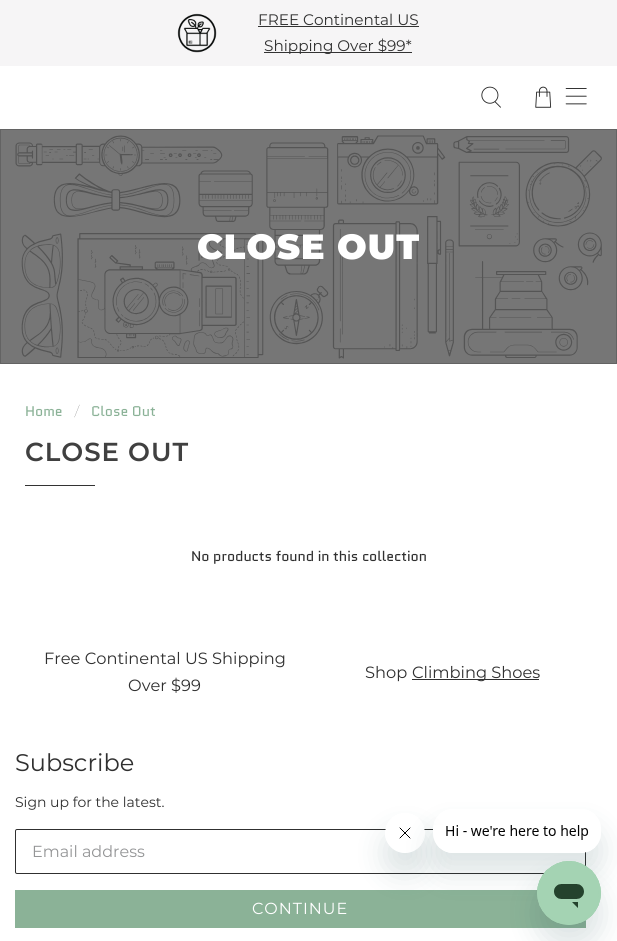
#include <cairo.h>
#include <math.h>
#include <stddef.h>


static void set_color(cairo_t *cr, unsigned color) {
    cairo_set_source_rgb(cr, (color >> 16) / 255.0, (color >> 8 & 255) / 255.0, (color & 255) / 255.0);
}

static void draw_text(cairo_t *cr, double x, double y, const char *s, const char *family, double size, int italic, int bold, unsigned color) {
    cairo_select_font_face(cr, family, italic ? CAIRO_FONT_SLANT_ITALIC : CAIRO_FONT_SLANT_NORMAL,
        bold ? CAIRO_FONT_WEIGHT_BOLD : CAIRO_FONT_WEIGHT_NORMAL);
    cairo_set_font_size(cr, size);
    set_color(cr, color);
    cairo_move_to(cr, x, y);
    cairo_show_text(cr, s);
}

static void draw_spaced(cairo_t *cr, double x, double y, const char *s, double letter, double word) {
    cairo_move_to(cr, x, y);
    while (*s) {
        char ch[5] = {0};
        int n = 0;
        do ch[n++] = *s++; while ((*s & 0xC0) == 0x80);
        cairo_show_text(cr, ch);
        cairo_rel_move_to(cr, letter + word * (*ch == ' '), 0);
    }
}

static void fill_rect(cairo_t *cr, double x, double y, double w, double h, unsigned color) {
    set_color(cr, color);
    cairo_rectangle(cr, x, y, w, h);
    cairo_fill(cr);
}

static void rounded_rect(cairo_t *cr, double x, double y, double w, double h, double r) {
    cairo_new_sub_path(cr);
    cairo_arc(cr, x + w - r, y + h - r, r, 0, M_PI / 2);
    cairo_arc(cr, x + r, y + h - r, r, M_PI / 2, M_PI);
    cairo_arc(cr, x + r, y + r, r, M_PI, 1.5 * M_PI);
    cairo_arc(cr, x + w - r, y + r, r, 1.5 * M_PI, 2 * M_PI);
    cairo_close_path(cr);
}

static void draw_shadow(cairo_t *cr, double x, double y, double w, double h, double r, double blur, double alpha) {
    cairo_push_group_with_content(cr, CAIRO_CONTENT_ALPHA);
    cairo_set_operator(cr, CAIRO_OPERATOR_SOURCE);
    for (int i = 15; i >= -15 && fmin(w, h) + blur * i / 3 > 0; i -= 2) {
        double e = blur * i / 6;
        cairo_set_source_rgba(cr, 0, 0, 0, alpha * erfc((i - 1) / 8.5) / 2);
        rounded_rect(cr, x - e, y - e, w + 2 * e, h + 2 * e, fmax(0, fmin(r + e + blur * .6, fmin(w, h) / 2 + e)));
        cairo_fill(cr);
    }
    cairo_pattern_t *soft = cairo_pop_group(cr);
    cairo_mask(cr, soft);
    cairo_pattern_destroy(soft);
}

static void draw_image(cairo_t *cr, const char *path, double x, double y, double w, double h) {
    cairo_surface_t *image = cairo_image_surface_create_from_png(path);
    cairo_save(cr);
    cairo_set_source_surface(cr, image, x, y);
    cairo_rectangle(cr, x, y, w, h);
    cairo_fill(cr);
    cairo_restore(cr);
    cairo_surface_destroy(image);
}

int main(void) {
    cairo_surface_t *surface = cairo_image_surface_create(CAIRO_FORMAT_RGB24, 617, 941);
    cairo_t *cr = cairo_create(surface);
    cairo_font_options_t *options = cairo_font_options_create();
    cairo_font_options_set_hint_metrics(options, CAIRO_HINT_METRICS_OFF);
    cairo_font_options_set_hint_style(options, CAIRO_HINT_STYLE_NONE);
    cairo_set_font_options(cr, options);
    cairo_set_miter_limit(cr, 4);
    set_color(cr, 0xFFFFFF);
    cairo_paint(cr);
    fill_rect(cr, 0, 0, 617, 66, 0xF6F5F6);
    draw_image(cr, "assets/img1.png", 177, 13, 40, 40);
    draw_text(cr, 258, 25, "FREE Continental US", "Montserrat", 15.25, 0, 0, 0x303030);
    fill_rect(cr, 258, 26, 161, 1, 0x333333);
    fill_rect(cr, 264, 52, 148, 1, 0x333333);
    draw_text(cr, 264, 51, "Shipping Over $99*", "Montserrat", 15.25, 0, 0, 0x303030);
    draw_image(cr, "assets/img2.png", 481, 86, 20, 22);
    draw_image(cr, "assets/img3.png", 535, 86, 17, 22);
    draw_image(cr, "assets/img4.png", 565, 88, 22, 17);
    set_color(cr, 0x767676);
    cairo_rectangle(cr, 0.5, 129.5, 616, 234);
    cairo_fill_preserve(cr);
    set_color(cr, 0x636363);
    cairo_set_line_width(cr, 1);
    cairo_stroke(cr);
    draw_image(cr, "assets/img5.png", 15, 135, 587, 224);
    cairo_select_font_face(cr, "Montserrat Black", CAIRO_FONT_SLANT_NORMAL, CAIRO_FONT_WEIGHT_NORMAL);
    cairo_set_font_size(cr, 35);
    set_color(cr, 0xFFFFFF);
    draw_spaced(cr, 197, 259, "CLOSE OUT", 1, 0);
    draw_text(cr, 25, 416, "Home", "Quantico", 14, 0, 0, 0x8BB297);
    set_color(cr, 0x303030);
    cairo_new_path(cr);
    cairo_move_to(cr, 74.5, 417.5);
    cairo_line_to(cr, 74.5, 417);
    cairo_line_to(cr, 79.5, 404.5);
    cairo_line_to(cr, 79.5, 405);
    cairo_close_path(cr);
    cairo_fill(cr);
    draw_text(cr, 91, 416, "Close Out", "Quantico", 14, 0, 0, 0x8BB297);
    cairo_select_font_face(cr, "Montserrat SemiBold", CAIRO_FONT_SLANT_NORMAL, CAIRO_FONT_WEIGHT_NORMAL);
    cairo_set_font_size(cr, 26);
    set_color(cr, 0x404040);
    draw_spaced(cr, 25, 461, "CLOSE OUT", 1, 0);
    fill_rect(cr, 25, 485, 70, 1, 0x333333);
    draw_text(cr, 191, 561, "No products found in this collection", "Quantico", 14, 0, 0, 0x303030);
    draw_text(cr, 44, 664, "Free Continental US Shipping", "Montserrat", 16.25, 0, 0, 0x303030);
    draw_text(cr, 128, 691, "Over $99", "Montserrat", 16.25, 0, 0, 0x303030);
    draw_text(cr, 365, 678, "Shop", "Montserrat", 16.25, 0, 0, 0x303030);
    fill_rect(cr, 412, 679, 127, 1, 0x303030);
    draw_text(cr, 412, 678, "Climbing Shoes", "Montserrat", 16.25, 0, 0, 0x303030);
    draw_text(cr, 15, 771, "Subscribe", "Montserrat", 24, 0, 0, 0x303030);
    draw_text(cr, 15, 807, "Sign up for the latest.", "Montserrat", 14, 0, 0, 0x303030);
    rounded_rect(cr, 15.5, 829.5, 570, 44, 1.5);
    cairo_stroke(cr);
    draw_text(cr, 32, 857, "Email address", "Montserrat", 16, 0, 0, 0x949596);
    fill_rect(cr, 15, 890, 571, 38, 0x8BB297);
    set_color(cr, 0xFFFFFF);
    draw_spaced(cr, 252, 914, "CONTINUE", 1, 0);
    cairo_save(cr);
    cairo_set_fill_rule(cr, CAIRO_FILL_RULE_EVEN_ODD);
    cairo_new_path(cr);
    cairo_move_to(cr, 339, 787);
    cairo_line_to(cr, 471, 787);
    cairo_line_to(cr, 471, 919);
    cairo_line_to(cr, 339, 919);
    cairo_close_path(cr);
    cairo_move_to(cr, 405, 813);
    cairo_curve_to(cr, 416, 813, 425, 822, 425, 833);
    cairo_curve_to(cr, 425, 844, 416, 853, 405, 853);
    cairo_curve_to(cr, 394, 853, 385, 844, 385, 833);
    cairo_curve_to(cr, 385, 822, 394, 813, 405, 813);
    cairo_close_path(cr);
    cairo_clip(cr);
    set_color(cr, 0x17494D);
    draw_shadow(cr, 385, 833, 40, 40, 20, 15, 0.15);
    cairo_restore(cr);
    draw_image(cr, "assets/img7.png", 385, 827, 40, 12);
    cairo_save(cr);
    cairo_set_fill_rule(cr, CAIRO_FILL_RULE_EVEN_ODD);
    cairo_new_path(cr);
    cairo_move_to(cr, 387, 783);
    cairo_line_to(cr, 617, 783);
    cairo_line_to(cr, 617, 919);
    cairo_line_to(cr, 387, 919);
    cairo_close_path(cr);
    cairo_move_to(cr, 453, 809);
    cairo_line_to(cr, 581, 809);
    cairo_curve_to(cr, 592, 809, 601, 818, 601, 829);
    cairo_line_to(cr, 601, 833);
    cairo_curve_to(cr, 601, 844, 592, 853, 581, 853);
    cairo_line_to(cr, 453, 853);
    cairo_curve_to(cr, 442, 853, 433, 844, 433, 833);
    cairo_line_to(cr, 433, 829);
    cairo_curve_to(cr, 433, 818, 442, 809, 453, 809);
    cairo_close_path(cr);
    cairo_clip(cr);
    set_color(cr, 0x17494D);
    draw_shadow(cr, 433, 829, 168, 44, 20, 15, 0.15);
    cairo_restore(cr);
    draw_image(cr, "assets/img6.png", 433, 825, 162, 28);
    set_color(cr, 0x17494D);
    draw_shadow(cr, 537, 881, 64, 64, 32, 15, 0.15);
    draw_image(cr, "assets/img8.png", 537, 861, 64, 64);
    cairo_surface_write_to_png(surface, "output.png");
    cairo_font_options_destroy(options);
    cairo_destroy(cr);
    cairo_surface_destroy(surface);
    return 0;
}
